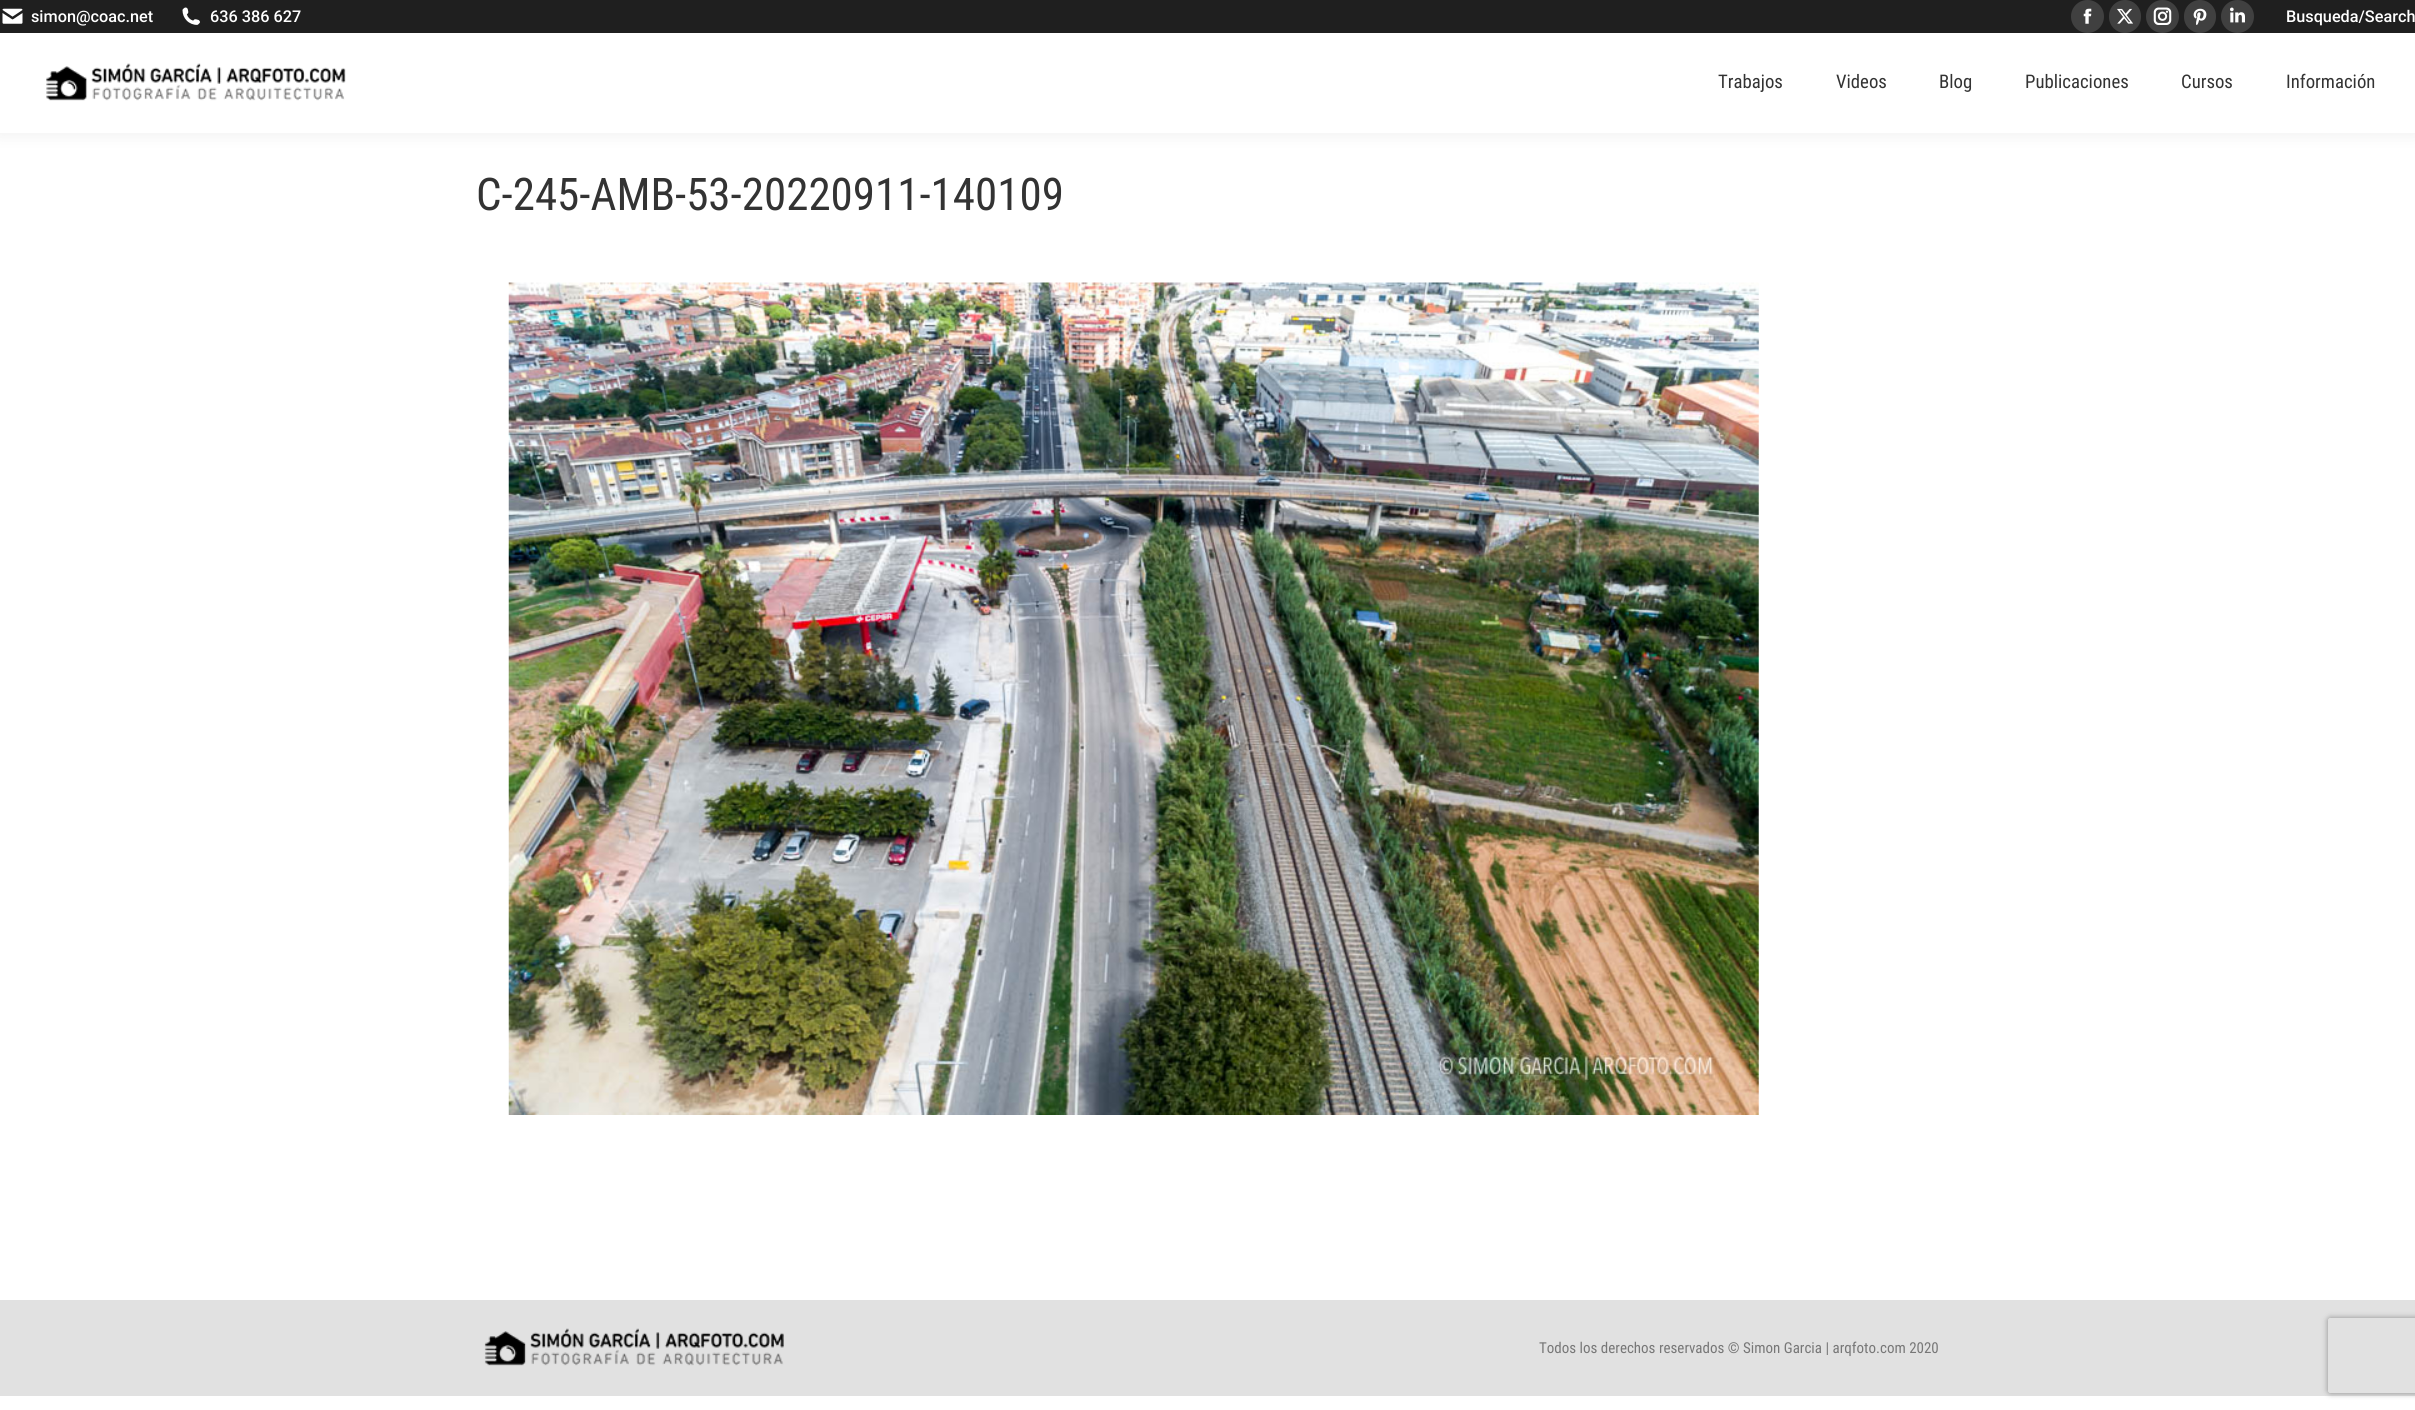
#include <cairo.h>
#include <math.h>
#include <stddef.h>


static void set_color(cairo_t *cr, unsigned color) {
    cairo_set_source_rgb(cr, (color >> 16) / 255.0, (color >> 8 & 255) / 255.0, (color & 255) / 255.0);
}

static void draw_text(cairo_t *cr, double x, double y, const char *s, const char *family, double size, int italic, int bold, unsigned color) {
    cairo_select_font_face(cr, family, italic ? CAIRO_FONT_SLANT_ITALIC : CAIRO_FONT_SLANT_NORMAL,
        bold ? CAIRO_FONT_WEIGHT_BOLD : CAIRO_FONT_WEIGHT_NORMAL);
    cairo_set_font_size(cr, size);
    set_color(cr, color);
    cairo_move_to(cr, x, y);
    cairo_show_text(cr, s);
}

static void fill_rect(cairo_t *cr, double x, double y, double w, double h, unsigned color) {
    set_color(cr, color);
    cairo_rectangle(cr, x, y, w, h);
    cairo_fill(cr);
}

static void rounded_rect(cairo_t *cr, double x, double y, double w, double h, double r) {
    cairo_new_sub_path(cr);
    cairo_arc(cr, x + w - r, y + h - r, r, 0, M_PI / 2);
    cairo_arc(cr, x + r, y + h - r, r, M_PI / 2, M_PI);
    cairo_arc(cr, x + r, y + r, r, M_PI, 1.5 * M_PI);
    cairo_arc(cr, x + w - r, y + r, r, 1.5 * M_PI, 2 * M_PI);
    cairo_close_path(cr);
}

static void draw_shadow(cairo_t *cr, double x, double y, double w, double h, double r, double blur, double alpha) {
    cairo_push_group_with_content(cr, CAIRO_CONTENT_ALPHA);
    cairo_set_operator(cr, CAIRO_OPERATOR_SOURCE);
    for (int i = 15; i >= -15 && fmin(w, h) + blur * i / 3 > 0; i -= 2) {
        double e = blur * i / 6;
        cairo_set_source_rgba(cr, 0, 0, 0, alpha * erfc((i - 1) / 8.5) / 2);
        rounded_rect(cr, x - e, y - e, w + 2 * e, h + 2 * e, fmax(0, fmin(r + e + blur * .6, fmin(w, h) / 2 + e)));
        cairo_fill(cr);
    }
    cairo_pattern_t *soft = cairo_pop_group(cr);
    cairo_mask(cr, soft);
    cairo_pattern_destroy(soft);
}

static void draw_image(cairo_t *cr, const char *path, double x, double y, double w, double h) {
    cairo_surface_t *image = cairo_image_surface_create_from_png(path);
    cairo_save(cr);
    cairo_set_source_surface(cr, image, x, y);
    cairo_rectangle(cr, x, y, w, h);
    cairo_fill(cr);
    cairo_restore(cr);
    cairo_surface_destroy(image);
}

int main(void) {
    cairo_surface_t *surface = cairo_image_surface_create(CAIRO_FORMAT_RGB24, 2415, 1410);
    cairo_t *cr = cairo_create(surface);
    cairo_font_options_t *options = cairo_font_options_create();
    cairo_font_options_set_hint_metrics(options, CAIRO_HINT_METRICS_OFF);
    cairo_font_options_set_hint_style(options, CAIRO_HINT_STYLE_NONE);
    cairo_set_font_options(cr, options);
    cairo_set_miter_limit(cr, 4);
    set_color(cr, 0xFFFFFF);
    cairo_paint(cr);
    set_color(cr, 0x000000);
    draw_shadow(cr, -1, -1, 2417, 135, 0, 9.5, 0.07);
    fill_rect(cr, 0, 33, 2415, 100, 0xFFFFFF);
    fill_rect(cr, 0, 0, 2415, 33, 0x1F1F1F);
    draw_image(cr, "assets/img1.png", 2, 8, 21, 16);
    draw_text(cr, 31, 22, "simon@coac.net", "Roboto Medium", 16.25, 0, 0, 0xFFFFFF);
    draw_image(cr, "assets/img2.png", 182, 7, 18, 18);
    draw_text(cr, 210, 22, "636 386 627", "Roboto Medium", 16.25, 0, 0, 0xFFFFFF);
    set_color(cr, 0x404040);
    cairo_new_path(cr);
    cairo_arc(cr, 2087.5, 16.5, 16.5, 0, 2 * M_PI);
    cairo_fill(cr);
    draw_image(cr, "assets/img3.png", 2083, 8, 9, 16);
    rounded_rect(cr, 2109, 0, 32, 33, 16);
    cairo_fill(cr);
    draw_image(cr, "assets/img4.png", 2117, 8, 16, 16);
    cairo_arc(cr, 2162.5, 16.5, 16.5, 0, 2 * M_PI);
    cairo_fill(cr);
    draw_image(cr, "assets/img5.png", 2153, 7, 19, 18);
    rounded_rect(cr, 2184, 0, 32, 33, 16);
    cairo_fill(cr);
    draw_image(cr, "assets/img6.png", 2193, 8, 14, 17);
    cairo_arc(cr, 2237.5, 16.5, 16.5, 0, 2 * M_PI);
    cairo_fill(cr);
    draw_image(cr, "assets/img7.png", 2230, 7, 15, 16);
    draw_text(cr, 2286, 22, "Busqueda/Search", "Roboto Medium", 16.25, 0, 0, 0xFFFFFF);
    draw_image(cr, "assets/img8.png", 46, 63, 300, 38);
    draw_text(cr, 1718, 88, "Trabajos", "Roboto Condensed", 18.75, 0, 0, 0x333333);
    draw_text(cr, 1836, 88, "Videos", "Roboto Condensed", 18.75, 0, 0, 0x333333);
    draw_text(cr, 1939, 88, "Blog", "Roboto Condensed", 18.75, 0, 0, 0x333333);
    draw_text(cr, 2025, 88, "Publicaciones", "Roboto Condensed", 18.75, 0, 0, 0x333333);
    draw_text(cr, 2181, 88, "Cursos", "Roboto Condensed", 18.75, 0, 0, 0x333333);
    draw_text(cr, 2286, 88, "Información", "Roboto Condensed", 18.75, 0, 0, 0x333333);
    draw_text(cr, 476, 210, "C-245-AMB-53-20220911-140109", "Roboto Condensed", 45, 0, 0, 0x333333);
    draw_image(cr, "assets/img9.png", 508, 282, 1251, 833);
    fill_rect(cr, 0, 1300, 2415, 96, 0xF3F3F3);
    cairo_save(cr);
    cairo_set_fill_rule(cr, CAIRO_FILL_RULE_EVEN_ODD);
    cairo_new_path(cr);
    cairo_move_to(cr, 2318, 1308);
    cairo_line_to(cr, 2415, 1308);
    cairo_line_to(cr, 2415, 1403);
    cairo_line_to(cr, 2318, 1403);
    cairo_close_path(cr);
    cairo_move_to(cr, 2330.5, 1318);
    cairo_line_to(cr, 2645.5, 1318);
    cairo_curve_to(cr, 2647, 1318, 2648, 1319, 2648, 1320.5);
    cairo_line_to(cr, 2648, 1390.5);
    cairo_curve_to(cr, 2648, 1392, 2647, 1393, 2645.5, 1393);
    cairo_line_to(cr, 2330.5, 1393);
    cairo_curve_to(cr, 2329, 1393, 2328, 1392, 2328, 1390.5);
    cairo_line_to(cr, 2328, 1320.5);
    cairo_curve_to(cr, 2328, 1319, 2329, 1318, 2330.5, 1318);
    cairo_close_path(cr);
    cairo_clip(cr);
    set_color(cr, 0x808080);
    draw_shadow(cr, 2328, 1318, 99, 75, 2.5, 3, 1);
    cairo_restore(cr);
    cairo_set_source_rgba(cr, 0.675, 0.675, 0.675, 0.25);
    cairo_rectangle(cr, 0, 1300, 2415, 96);
    cairo_fill(cr);
    draw_image(cr, "assets/img10.png", 484, 1328, 300, 38);
    draw_text(cr, 1539, 1353, "Todos los derechos reservados © Simon Garcia | arqfoto.com 2020", "Roboto Condensed", 15, 0, 0, 0x777777);
    cairo_surface_write_to_png(surface, "output.png");
    cairo_font_options_destroy(options);
    cairo_destroy(cr);
    cairo_surface_destroy(surface);
    return 0;
}
